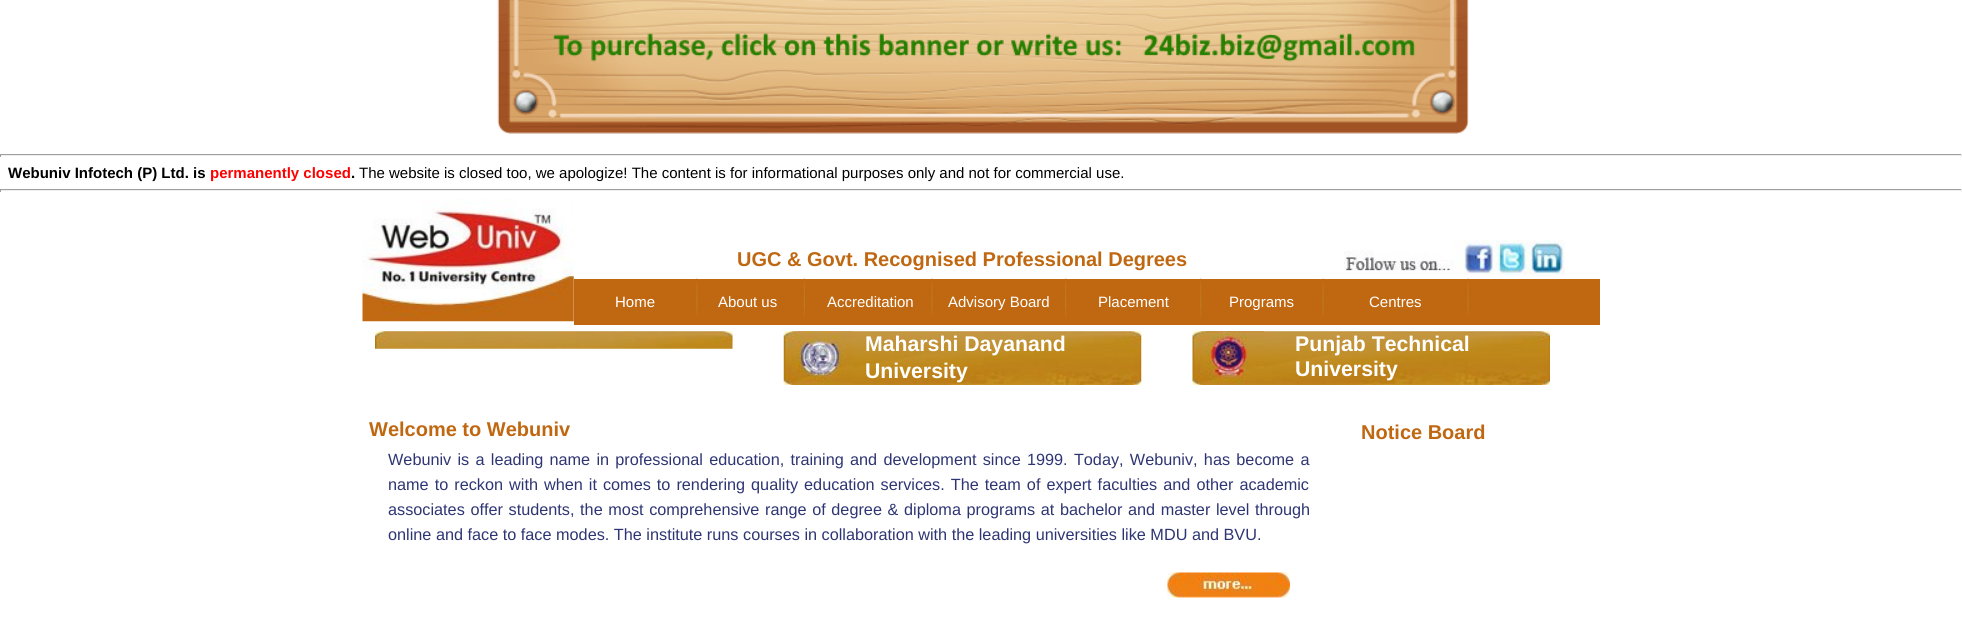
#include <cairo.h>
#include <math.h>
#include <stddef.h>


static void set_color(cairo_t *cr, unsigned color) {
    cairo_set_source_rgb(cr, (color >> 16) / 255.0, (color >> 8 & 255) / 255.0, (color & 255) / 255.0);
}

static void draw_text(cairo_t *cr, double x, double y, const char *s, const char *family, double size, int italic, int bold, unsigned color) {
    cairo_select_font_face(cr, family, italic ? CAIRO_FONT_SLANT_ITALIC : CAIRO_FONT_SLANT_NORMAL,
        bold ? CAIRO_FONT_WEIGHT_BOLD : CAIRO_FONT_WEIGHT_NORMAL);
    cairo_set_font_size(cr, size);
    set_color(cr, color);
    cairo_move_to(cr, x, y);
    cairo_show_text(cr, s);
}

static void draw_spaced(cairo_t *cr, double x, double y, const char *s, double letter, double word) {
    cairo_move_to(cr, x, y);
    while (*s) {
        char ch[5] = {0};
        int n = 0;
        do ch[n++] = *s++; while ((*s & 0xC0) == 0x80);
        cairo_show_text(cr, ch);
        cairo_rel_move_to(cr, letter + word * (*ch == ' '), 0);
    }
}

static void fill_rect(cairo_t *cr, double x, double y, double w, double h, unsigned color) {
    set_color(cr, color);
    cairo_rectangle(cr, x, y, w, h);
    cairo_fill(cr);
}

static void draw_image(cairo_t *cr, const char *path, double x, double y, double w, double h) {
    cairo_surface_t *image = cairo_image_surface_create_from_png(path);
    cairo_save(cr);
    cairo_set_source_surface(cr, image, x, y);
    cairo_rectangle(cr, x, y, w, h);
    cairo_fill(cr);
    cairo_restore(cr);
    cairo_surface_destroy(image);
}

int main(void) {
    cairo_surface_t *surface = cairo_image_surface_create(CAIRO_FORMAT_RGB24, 1962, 633);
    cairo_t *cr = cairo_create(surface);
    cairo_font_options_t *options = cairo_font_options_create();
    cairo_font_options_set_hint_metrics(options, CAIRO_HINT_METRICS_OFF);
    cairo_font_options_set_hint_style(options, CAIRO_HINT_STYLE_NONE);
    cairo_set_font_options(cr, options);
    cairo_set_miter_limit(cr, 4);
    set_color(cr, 0xFFFFFF);
    cairo_paint(cr);
    draw_image(cr, "assets/img1.png", 497, 0, 972, 134);
    fill_rect(cr, 0, 154, 1962, 1, 0x9F9F9F);
    fill_rect(cr, 1961, 154, 1, 3, 0xEEEEEE);
    fill_rect(cr, 0, 155, 1962, 1, 0xEEEEEE);
    fill_rect(cr, 0, 154, 1, 3, 0x9F9F9F);
    draw_text(cr, 8, 178, "Webuniv Infotech (P) Ltd. is", "Liberation Sans", 15, 0, 1, 0x000000);
    draw_text(cr, 210, 178, "permanently closed", "Liberation Sans", 15, 0, 1, 0xFF0000);
    draw_text(cr, 351, 178, ".", "Liberation Sans", 15, 0, 1, 0x000000);
    draw_text(cr, 359, 178, "The website is closed too, we apologize! The content is for informational purposes only and not for commercial use.", "Liberation Sans", 15, 0, 0, 0x000000);
    fill_rect(cr, 0, 189, 1962, 1, 0x9F9F9F);
    fill_rect(cr, 1961, 189, 1, 3, 0xEEEEEE);
    fill_rect(cr, 0, 190, 1962, 1, 0xEEEEEE);
    fill_rect(cr, 0, 189, 1, 3, 0x9F9F9F);
    draw_image(cr, "assets/img2.png", 362, 199, 212, 123);
    draw_text(cr, 737, 266, "UGC & Govt. Recognised Professional Degrees", "Liberation Sans", 20, 0, 1, 0xC06811);
    draw_image(cr, "assets/img3.png", 1344, 250, 110, 21);
    draw_image(cr, "assets/img4.png", 1454, 240, 42, 35);
    draw_image(cr, "assets/img5.png", 1496, 240, 33, 35);
    draw_image(cr, "assets/img6.png", 1528, 240, 37, 35);
    fill_rect(cr, 574, 279, 1026, 46, 0xC06811);
    draw_text(cr, 615, 307, "Home", "Liberation Sans", 15, 0, 0, 0xFFFFFF);
    draw_image(cr, "assets/img7.png", 696, 278, 2, 38);
    draw_text(cr, 718, 307, "About us", "Liberation Sans", 15, 0, 0, 0xFFFFFF);
    draw_image(cr, "assets/img8.png", 803, 278, 2, 41);
    draw_text(cr, 827, 307, "Accreditation", "Liberation Sans", 15, 0, 0, 0xFFFFFF);
    draw_image(cr, "assets/img7.png", 931, 278, 2, 38);
    draw_text(cr, 948, 307, "Advisory Board", "Liberation Sans", 15, 0, 0, 0xFFFFFF);
    draw_image(cr, "assets/img9.png", 1065, 278, 2, 41);
    draw_text(cr, 1098, 307, "Placement", "Liberation Sans", 15, 0, 0, 0xFFFFFF);
    draw_image(cr, "assets/img9.png", 1200, 278, 2, 41);
    draw_text(cr, 1229, 307, "Programs", "Liberation Sans", 15, 0, 0, 0xFFFFFF);
    draw_image(cr, "assets/img10.png", 1322, 278, 2, 38);
    draw_text(cr, 1369, 307, "Centres", "Liberation Sans", 15, 0, 0, 0xFFFFFF);
    draw_image(cr, "assets/img10.png", 1467, 278, 2, 38);
    draw_image(cr, "assets/img11.png", 375, 331, 358, 18);
    draw_image(cr, "assets/img12.png", 783, 331, 359, 54);
    draw_image(cr, "assets/img13.png", 797, 331, 56, 53);
    draw_text(cr, 865, 351, "Maharshi Dayanand", "Liberation Sans", 21.25, 0, 1, 0xFFFFFF);
    draw_text(cr, 865, 378, "University", "Liberation Sans", 21.25, 0, 1, 0xFFFFFF);
    draw_image(cr, "assets/img14.png", 1192, 331, 358, 54);
    draw_image(cr, "assets/img15.png", 1206, 331, 58, 54);
    draw_text(cr, 1295, 351, "Punjab Technical", "Liberation Sans", 21.25, 0, 1, 0xFFFFFF);
    draw_text(cr, 1295, 376, "University", "Liberation Sans", 21.25, 0, 1, 0xFFFFFF);
    draw_text(cr, 369, 436, "Welcome to Webuniv", "Liberation Sans", 20, 0, 1, 0xC06811);
    cairo_select_font_face(cr, "Liberation Sans", CAIRO_FONT_SLANT_NORMAL, CAIRO_FONT_WEIGHT_NORMAL);
    cairo_set_font_size(cr, 16.25);
    set_color(cr, 0x2E3573);
    draw_spaced(cr, 388, 465, "Webuniv is a leading name in professional education, training and development since 1999. Today, Webuniv, has become a", 0, 1.75);
    draw_spaced(cr, 388, 490, "name to reckon with when it comes to rendering quality education services. The team of expert faculties and other academic", 0, 1.5);
    draw_spaced(cr, 388, 515, "associates offer students, the most comprehensive range of degree & diploma programs at bachelor and master level through", 0, 1.1);
    draw_text(cr, 388, 540, "online and face to face modes. The institute runs courses in collaboration with the leading universities like MDU and BVU.", "Liberation Sans", 16.25, 0, 0, 0x2E3573);
    draw_image(cr, "assets/img16.png", 1167, 572, 123, 26);
    draw_text(cr, 1361, 439, "Notice Board", "Liberation Sans", 20, 0, 1, 0xC06811);
    cairo_surface_write_to_png(surface, "output.png");
    cairo_font_options_destroy(options);
    cairo_destroy(cr);
    cairo_surface_destroy(surface);
    return 0;
}
